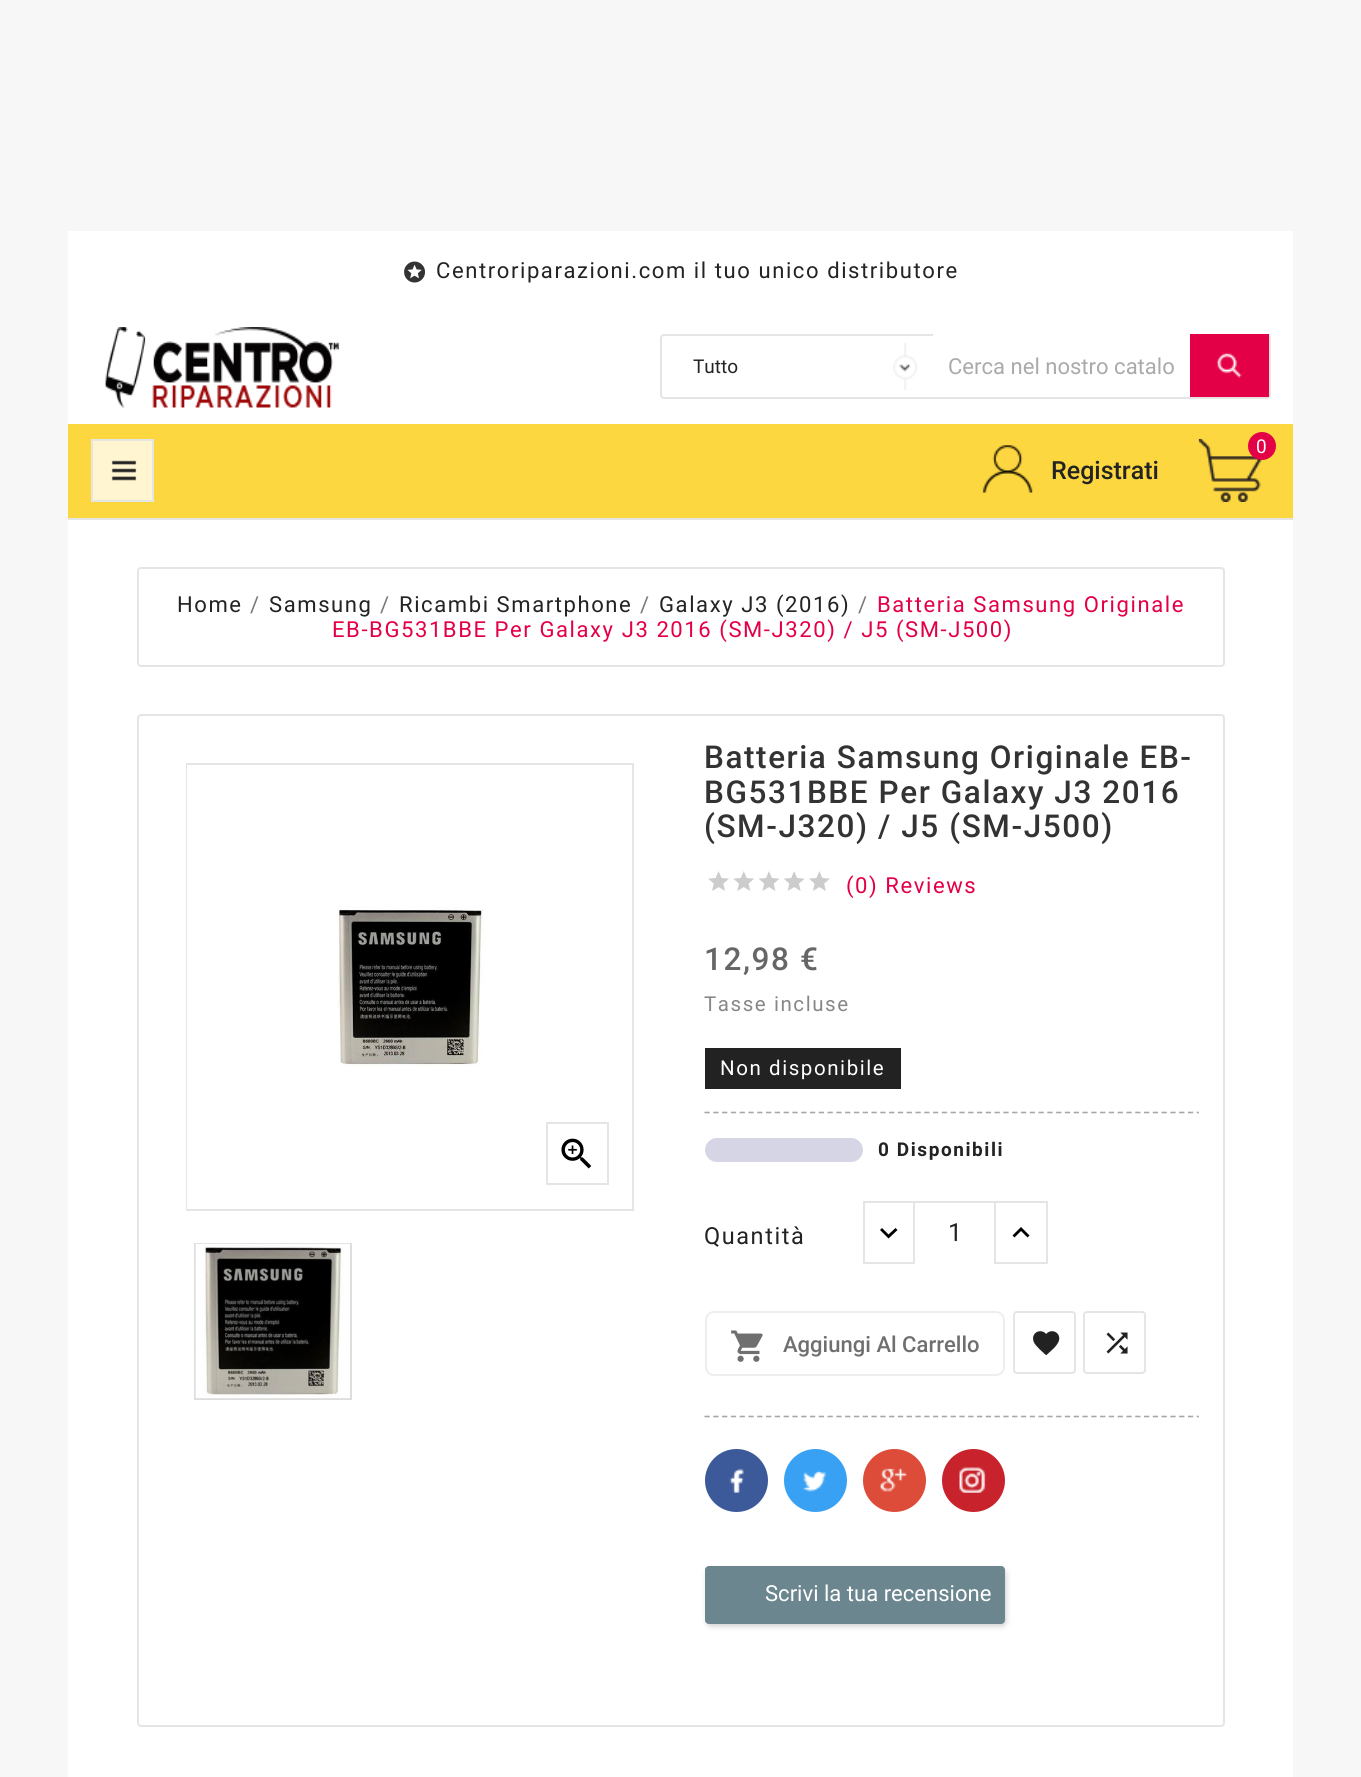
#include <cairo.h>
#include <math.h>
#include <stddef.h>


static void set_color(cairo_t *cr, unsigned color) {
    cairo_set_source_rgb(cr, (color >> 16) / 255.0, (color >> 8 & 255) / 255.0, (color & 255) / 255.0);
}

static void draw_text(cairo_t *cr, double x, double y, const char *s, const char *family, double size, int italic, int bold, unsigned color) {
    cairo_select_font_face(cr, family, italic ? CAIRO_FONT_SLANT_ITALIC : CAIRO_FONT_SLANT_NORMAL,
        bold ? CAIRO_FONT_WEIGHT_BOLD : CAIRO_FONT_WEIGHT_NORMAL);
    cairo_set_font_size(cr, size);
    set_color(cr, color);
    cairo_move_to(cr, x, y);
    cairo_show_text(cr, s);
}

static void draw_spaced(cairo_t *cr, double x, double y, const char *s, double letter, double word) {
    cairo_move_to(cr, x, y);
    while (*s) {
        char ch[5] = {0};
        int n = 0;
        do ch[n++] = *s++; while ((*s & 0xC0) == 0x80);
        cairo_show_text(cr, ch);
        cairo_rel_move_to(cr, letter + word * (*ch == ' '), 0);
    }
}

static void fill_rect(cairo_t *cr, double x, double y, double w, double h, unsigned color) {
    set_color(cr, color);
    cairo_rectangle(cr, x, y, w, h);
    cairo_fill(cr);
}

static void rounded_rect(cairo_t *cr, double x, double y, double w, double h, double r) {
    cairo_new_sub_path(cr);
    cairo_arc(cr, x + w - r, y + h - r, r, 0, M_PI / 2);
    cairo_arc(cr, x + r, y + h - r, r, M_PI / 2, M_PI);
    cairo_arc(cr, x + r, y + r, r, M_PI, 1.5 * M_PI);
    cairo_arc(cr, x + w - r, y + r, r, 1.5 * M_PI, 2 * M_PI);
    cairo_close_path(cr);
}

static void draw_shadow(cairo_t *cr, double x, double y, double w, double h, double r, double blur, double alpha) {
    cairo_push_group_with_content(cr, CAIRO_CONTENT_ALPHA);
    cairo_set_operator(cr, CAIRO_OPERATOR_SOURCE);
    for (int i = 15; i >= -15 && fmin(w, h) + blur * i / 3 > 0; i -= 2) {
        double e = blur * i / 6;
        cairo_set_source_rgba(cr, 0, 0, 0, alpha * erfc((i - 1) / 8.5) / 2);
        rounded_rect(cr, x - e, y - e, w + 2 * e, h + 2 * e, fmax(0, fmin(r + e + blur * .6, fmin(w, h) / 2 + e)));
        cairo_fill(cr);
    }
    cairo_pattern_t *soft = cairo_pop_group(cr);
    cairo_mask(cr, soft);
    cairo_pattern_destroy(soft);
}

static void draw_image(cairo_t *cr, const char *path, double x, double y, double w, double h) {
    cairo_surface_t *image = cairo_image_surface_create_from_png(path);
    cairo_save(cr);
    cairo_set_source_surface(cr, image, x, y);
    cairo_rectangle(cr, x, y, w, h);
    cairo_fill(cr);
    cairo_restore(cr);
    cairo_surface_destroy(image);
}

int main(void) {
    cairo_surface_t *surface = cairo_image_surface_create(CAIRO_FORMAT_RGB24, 1361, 1777);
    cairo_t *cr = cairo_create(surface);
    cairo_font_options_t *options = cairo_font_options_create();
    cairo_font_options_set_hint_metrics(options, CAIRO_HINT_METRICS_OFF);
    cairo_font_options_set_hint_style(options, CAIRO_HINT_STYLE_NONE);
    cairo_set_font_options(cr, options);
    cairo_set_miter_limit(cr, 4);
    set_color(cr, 0xF7F7F7);
    cairo_paint(cr);
    fill_rect(cr, 68, 231, 1225, 1546, 0xFFFFFF);
    fill_rect(cr, 68, 518, 1225, 2, 0xE5E5E5);
    draw_image(cr, "assets/img1.png", 404, 261, 21, 22);
    cairo_select_font_face(cr, "Roboto", CAIRO_FONT_SLANT_NORMAL, CAIRO_FONT_WEIGHT_NORMAL);
    cairo_set_font_size(cr, 22.05);
    set_color(cr, 0x232323);
    draw_spaced(cr, 436, 278, "Centroriparazioni.com il tuo unico distributore", 1.57, 0);
    draw_image(cr, "assets/img2.png", 105, 327, 235, 81);
    rounded_rect(cr, 661, 335, 609, 63, 3);
    set_color(cr, 0xE5E5E5);
    cairo_stroke(cr);
    draw_image(cr, "assets/img3.png", 893, 343, 24, 47);
    draw_text(cr, 693, 373, "Tutto", "Roboto", 19, 0, 0, 0x232323);
    fill_rect(cr, 933, 334, 257, 2, 0xFFFFFF);
    draw_text(cr, 948, 374, "Cerca nel nostro catalo", "Roboto", 22.05, 0, 0, 0xAAAAAA);
    fill_rect(cr, 1190, 334, 79, 63, 0xE40046);
    draw_image(cr, "assets/img4.png", 1216, 352, 26, 26);
    fill_rect(cr, 68, 424, 1225, 94, 0xFDD740);
    fill_rect(cr, 93, 441, 59, 59, 0xFFF5D1);
    draw_image(cr, "assets/img5.png", 111, 460, 26, 21);
    cairo_rectangle(cr, 92, 440, 61, 61);
    set_color(cr, 0xE5E5E5);
    cairo_stroke(cr);
    draw_image(cr, "assets/img6.png", 1198, 438, 64, 64);
    set_color(cr, 0xE40046);
    cairo_arc(cr, 1262, 446, 14, 0, 2 * M_PI);
    cairo_fill(cr);
    cairo_set_font_size(cr, 19);
    set_color(cr, 0xFFFFFF);
    draw_spaced(cr, 1256, 453, "0", 1.57, 0);
    draw_image(cr, "assets/img7.png", 982, 445, 51, 48);
    draw_text(cr, 1051, 479, "Registrati", "Roboto Medium", 25, 0, 0, 0x232323);
    rounded_rect(cr, 138, 568, 1086, 98, 3);
    set_color(cr, 0xE5E5E5);
    cairo_stroke(cr);
    cairo_select_font_face(cr, "Roboto", CAIRO_FONT_SLANT_NORMAL, CAIRO_FONT_WEIGHT_NORMAL);
    cairo_set_font_size(cr, 22.05);
    set_color(cr, 0x232323);
    draw_spaced(cr, 177, 612, "Home", 1.57, 0);
    set_color(cr, 0x7A7A7A);
    draw_spaced(cr, 250, 612, "/", 1.57, 0);
    set_color(cr, 0x232323);
    draw_spaced(cr, 269, 612, "Samsung", 1.57, 0);
    set_color(cr, 0x7A7A7A);
    draw_spaced(cr, 380, 612, "/", 1.57, 0);
    set_color(cr, 0x232323);
    draw_spaced(cr, 399, 612, "Ricambi Smartphone", 1.57, 0);
    set_color(cr, 0x7A7A7A);
    draw_spaced(cr, 640, 612, "/", 1.57, 0);
    set_color(cr, 0x232323);
    draw_spaced(cr, 659, 612, "Galaxy J3 (2016)", 1.57, 0);
    set_color(cr, 0x7A7A7A);
    draw_spaced(cr, 858, 612, "/", 1.57, 0);
    set_color(cr, 0xE40046);
    draw_spaced(cr, 877, 612, "Batteria Samsung Originale", 1.57, 0);
    draw_spaced(cr, 332, 637, "EB-BG531BBE Per Galaxy J3 2016 (SM-J320) / J5 (SM-J500)", 1.57, 0);
    rounded_rect(cr, 138, 715, 1086, 1011, 3);
    set_color(cr, 0xE5E5E5);
    cairo_stroke(cr);
    cairo_rectangle(cr, 187, 764, 446, 446);
    cairo_stroke(cr);
    fill_rect(cr, 187, 765, 1, 444, 0xFFFFFF);
    draw_image(cr, "assets/img8.png", 338, 906, 146, 160);
    cairo_rectangle(cr, 547, 1123, 61, 61);
    set_color(cr, 0xE5E5E5);
    cairo_stroke(cr);
    draw_image(cr, "assets/img9.png", 561, 1138, 31, 31);
    cairo_rectangle(cr, 195, 1244, 156, 155);
    set_color(cr, 0xDDDDDD);
    cairo_stroke(cr);
    draw_image(cr, "assets/img10.png", 195, 1243, 155, 156);
    cairo_select_font_face(cr, "Roboto Medium", CAIRO_FONT_SLANT_NORMAL, CAIRO_FONT_WEIGHT_NORMAL);
    cairo_set_font_size(cr, 31.5);
    set_color(cr, 0x333333);
    draw_spaced(cr, 704, 768, "Batteria Samsung Originale EB-", 1.57, 0);
    draw_spaced(cr, 704, 803, "BG531BBE Per Galaxy J3 2016", 1.57, 0);
    draw_spaced(cr, 704, 837, "(SM-J320) / J5 (SM-J500)", 1.57, 0);
    draw_image(cr, "assets/img11.png", 708, 871, 21, 20);
    draw_image(cr, "assets/img12.png", 733, 871, 21, 20);
    draw_image(cr, "assets/img13.png", 758, 871, 22, 20);
    draw_image(cr, "assets/img14.png", 784, 871, 21, 20);
    draw_image(cr, "assets/img15.png", 809, 871, 21, 20);
    cairo_select_font_face(cr, "Roboto", CAIRO_FONT_SLANT_NORMAL, CAIRO_FONT_WEIGHT_NORMAL);
    cairo_set_font_size(cr, 22.05);
    set_color(cr, 0xE40046);
    draw_spaced(cr, 846, 893, "(0) Reviews", 1.57, 0);
    cairo_select_font_face(cr, "Roboto Medium", CAIRO_FONT_SLANT_NORMAL, CAIRO_FONT_WEIGHT_NORMAL);
    cairo_set_font_size(cr, 31.5);
    set_color(cr, 0x666666);
    draw_spaced(cr, 704, 970, "12,98 €", 1.57, 0);
    cairo_select_font_face(cr, "Roboto", CAIRO_FONT_SLANT_NORMAL, CAIRO_FONT_WEIGHT_NORMAL);
    cairo_set_font_size(cr, 20.5);
    set_color(cr, 0x878787);
    draw_spaced(cr, 704, 1011, "Tasse incluse", 1.57, 0);
    fill_rect(cr, 705, 1048, 196, 41, 0x222222);
    set_color(cr, 0xFFFFFF);
    draw_spaced(cr, 720, 1075, "Non disponibile", 1.57, 0);
    cairo_new_path(cr);
    cairo_move_to(cr, 704.5, 1112.5);
    cairo_line_to(cr, 1199, 1112.5);
    set_color(cr, 0xA7A7A7);
    cairo_set_line_width(cr, 1.6);
    cairo_set_dash(cr, (double[]){5.25, 3.54}, 2, 0);
    cairo_stroke(cr);
    set_color(cr, 0xD5D5E5);
    rounded_rect(cr, 705, 1138, 158, 24, 12);
    cairo_fill(cr);
    cairo_select_font_face(cr, "Roboto", CAIRO_FONT_SLANT_NORMAL, CAIRO_FONT_WEIGHT_BOLD);
    cairo_set_font_size(cr, 19);
    set_color(cr, 0x232323);
    draw_spaced(cr, 878, 1156, "0 Disponibili", 1.57, 0);
    cairo_select_font_face(cr, "Roboto", CAIRO_FONT_SLANT_NORMAL, CAIRO_FONT_WEIGHT_NORMAL);
    cairo_set_font_size(cr, 23.5);
    draw_spaced(cr, 704, 1244, "Quantità", 1.57, 0);
    cairo_rectangle(cr, 864, 1202, 50, 61);
    set_color(cr, 0xE5E5E5);
    cairo_set_line_width(cr, 2);
    cairo_set_dash(cr, NULL, 0, 0);
    cairo_stroke(cr);
    set_color(cr, 0x000000);
    cairo_new_path(cr);
    cairo_move_to(cr, 895.5, 1228);
    cairo_line_to(cr, 897.5, 1230);
    cairo_line_to(cr, 888.5, 1238.5);
    cairo_line_to(cr, 880, 1230);
    cairo_line_to(cr, 882, 1228);
    cairo_line_to(cr, 888.5, 1234.5);
    cairo_close_path(cr);
    cairo_fill(cr);
    fill_rect(cr, 915, 1201, 79, 2, 0xE5E5E5);
    draw_text(cr, 948, 1241, "1", "Roboto", 25, 0, 0, 0x232323);
    cairo_rectangle(cr, 995, 1202, 52, 61);
    set_color(cr, 0xE5E5E5);
    cairo_stroke(cr);
    set_color(cr, 0x000000);
    cairo_new_path(cr);
    cairo_move_to(cr, 1021, 1227);
    cairo_line_to(cr, 1029.5, 1235.5);
    cairo_line_to(cr, 1027.5, 1237.5);
    cairo_line_to(cr, 1021, 1231);
    cairo_line_to(cr, 1014.5, 1237.5);
    cairo_line_to(cr, 1012.5, 1235.5);
    cairo_close_path(cr);
    cairo_fill(cr);
    cairo_new_path(cr);
    cairo_move_to(cr, 704.5, 1416.5);
    cairo_line_to(cr, 1199, 1416.5);
    set_color(cr, 0xA7A7A7);
    cairo_set_line_width(cr, 1.6);
    cairo_set_dash(cr, (double[]){5.25, 3.54}, 2, 0);
    cairo_stroke(cr);
    rounded_rect(cr, 706, 1312, 298, 63, 8);
    set_color(cr, 0xEEEEEE);
    cairo_set_line_width(cr, 2);
    cairo_set_dash(cr, NULL, 0, 0);
    cairo_stroke(cr);
    draw_image(cr, "assets/img16.png", 731, 1330, 32, 32);
    draw_text(cr, 783, 1352, "Aggiungi Al Carrello", "Roboto Medium", 22.05, 0, 0, 0x6F6F6F);
    rounded_rect(cr, 1014, 1312, 61, 61, 3);
    set_color(cr, 0xE5E5E5);
    cairo_stroke(cr);
    draw_image(cr, "assets/img17.png", 1033, 1331, 27, 25);
    rounded_rect(cr, 1084, 1312, 61, 61, 3);
    cairo_stroke(cr);
    draw_image(cr, "assets/img18.png", 1106, 1332, 22, 22);
    set_color(cr, 0x3C5A99);
    cairo_arc(cr, 736.5, 1480.5, 31.5, 0, 2 * M_PI);
    cairo_fill(cr);
    draw_image(cr, "assets/img19.png", 729, 1468, 16, 25);
    set_color(cr, 0x38A1F3);
    cairo_arc(cr, 815.5, 1480.5, 31.5, 0, 2 * M_PI);
    cairo_fill(cr);
    draw_image(cr, "assets/img20.png", 803, 1470, 23, 22);
    set_color(cr, 0xDD4B39);
    cairo_arc(cr, 894.5, 1480.5, 31.5, 0, 2 * M_PI);
    cairo_fill(cr);
    draw_image(cr, "assets/img21.png", 880, 1468, 27, 24);
    set_color(cr, 0xC8232C);
    cairo_arc(cr, 973.5, 1480.5, 31.5, 0, 2 * M_PI);
    cairo_fill(cr);
    draw_image(cr, "assets/img22.png", 959, 1467, 27, 26);
    set_color(cr, 0x000000);
    draw_shadow(cr, 707, 1570, 299, 56, 4, 3, 0.2);
    set_color(cr, 0x6B868F);
    rounded_rect(cr, 705, 1566, 300, 58, 4);
    cairo_fill(cr);
    draw_text(cr, 765, 1601, "Scrivi la tua recensione", "Roboto", 22.05, 0, 0, 0xFFFFFF);
    cairo_surface_write_to_png(surface, "output.png");
    cairo_font_options_destroy(options);
    cairo_destroy(cr);
    cairo_surface_destroy(surface);
    return 0;
}
